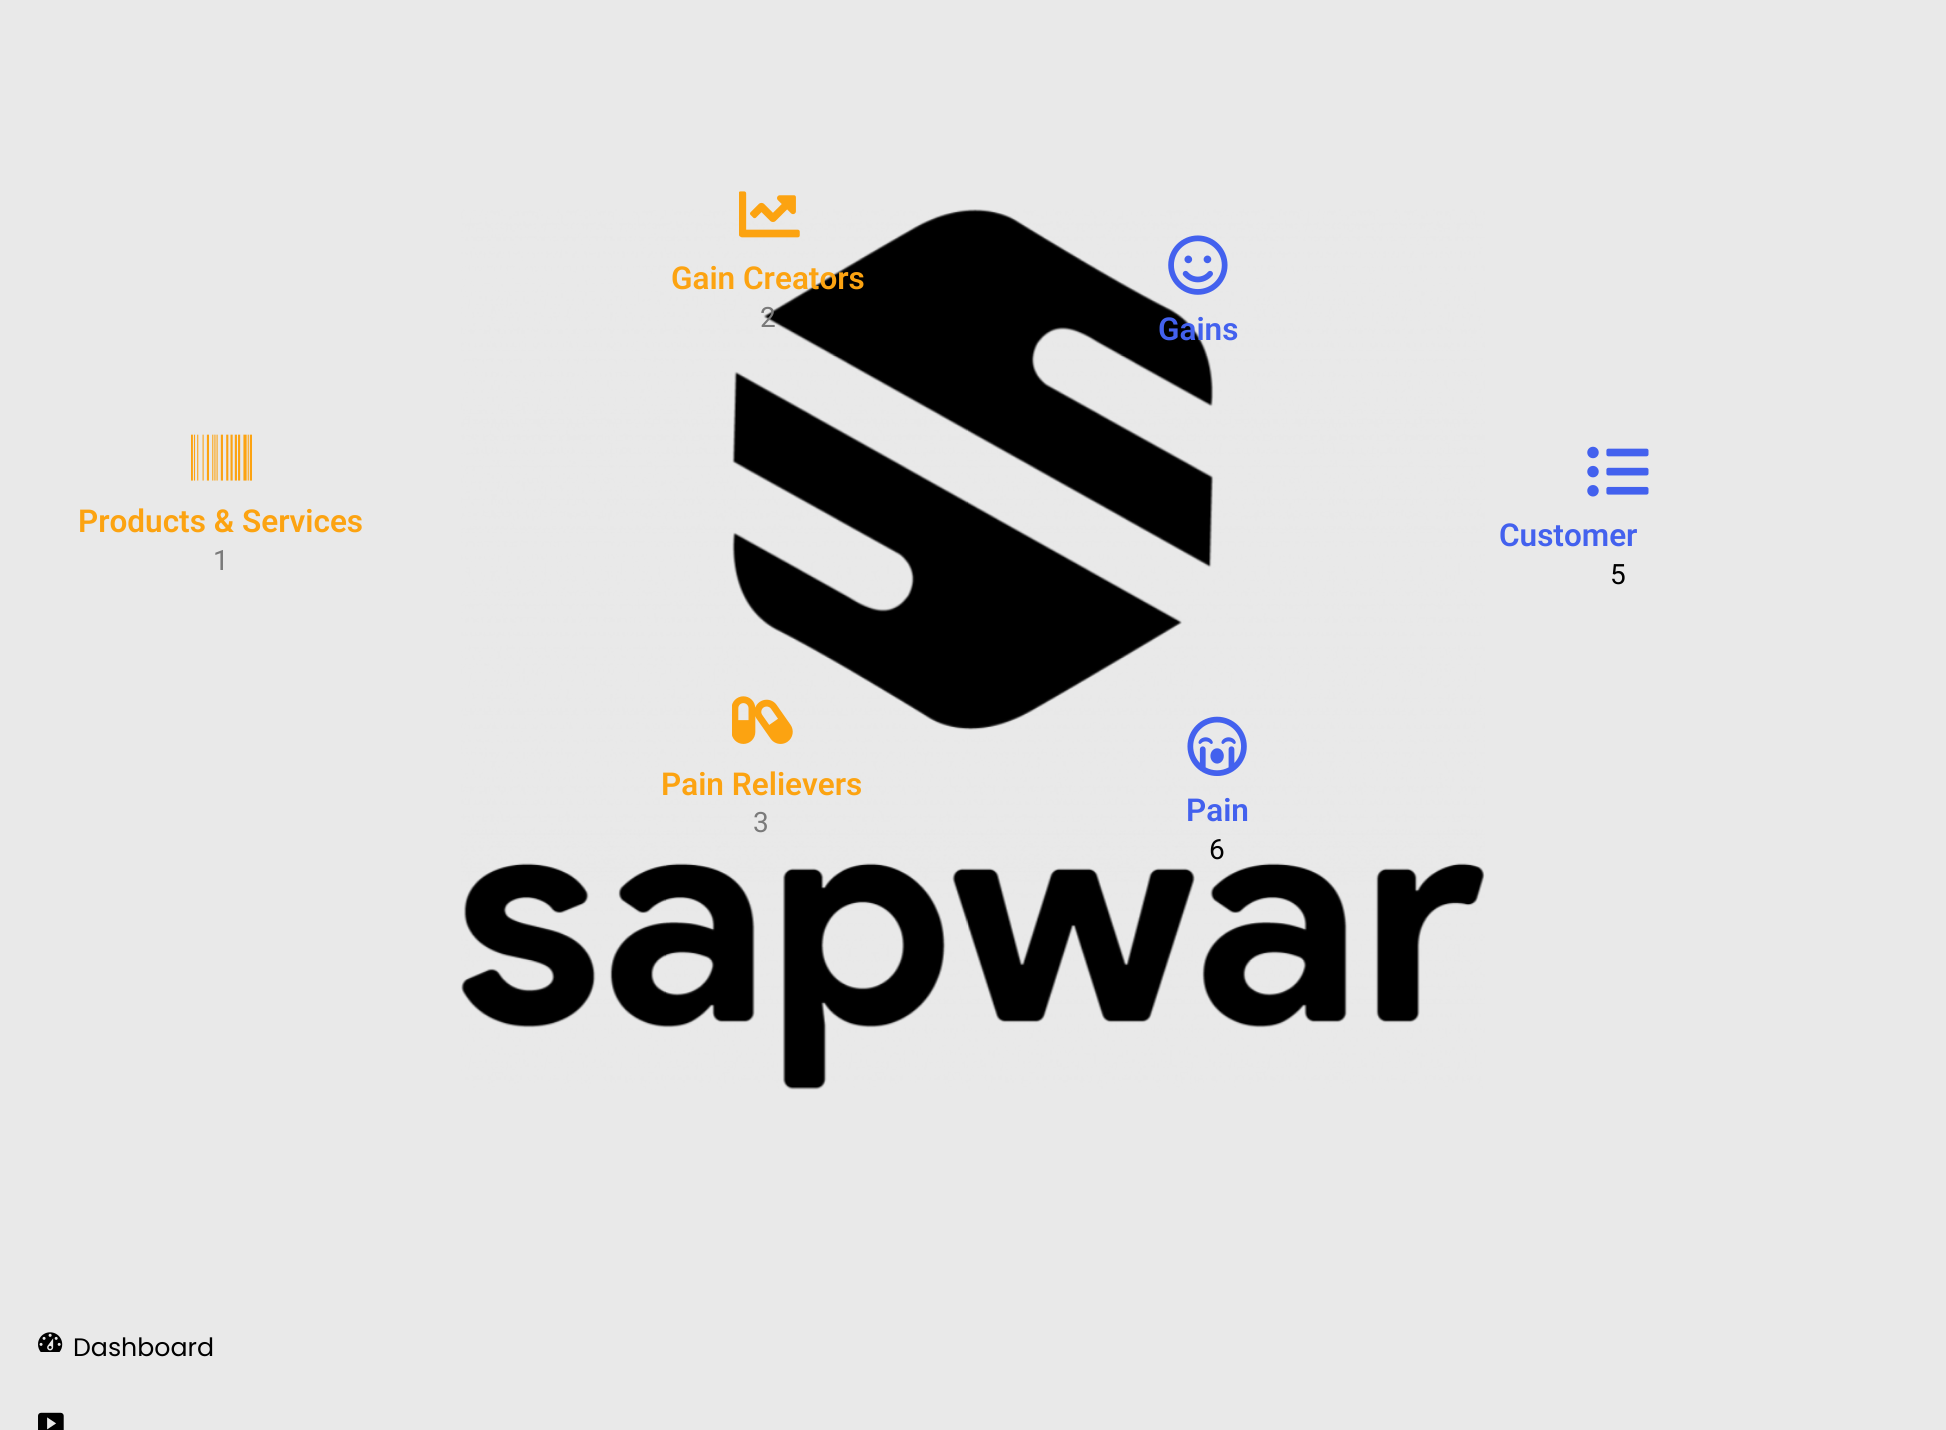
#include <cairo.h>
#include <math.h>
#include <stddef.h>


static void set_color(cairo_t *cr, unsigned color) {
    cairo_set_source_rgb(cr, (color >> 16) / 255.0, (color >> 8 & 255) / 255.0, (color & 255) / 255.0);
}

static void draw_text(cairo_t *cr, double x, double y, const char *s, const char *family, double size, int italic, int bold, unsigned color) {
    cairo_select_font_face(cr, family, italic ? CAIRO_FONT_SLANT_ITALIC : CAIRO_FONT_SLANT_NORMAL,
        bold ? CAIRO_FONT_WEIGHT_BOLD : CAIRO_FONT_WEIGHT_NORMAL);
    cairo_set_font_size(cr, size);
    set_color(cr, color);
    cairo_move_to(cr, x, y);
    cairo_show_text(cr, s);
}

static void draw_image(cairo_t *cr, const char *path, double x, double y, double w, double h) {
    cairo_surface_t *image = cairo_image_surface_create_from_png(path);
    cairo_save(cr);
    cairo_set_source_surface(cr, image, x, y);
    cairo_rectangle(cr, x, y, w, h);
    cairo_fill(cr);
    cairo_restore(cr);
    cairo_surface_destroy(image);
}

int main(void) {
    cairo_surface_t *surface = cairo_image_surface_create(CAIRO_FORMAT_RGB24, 1946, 1430);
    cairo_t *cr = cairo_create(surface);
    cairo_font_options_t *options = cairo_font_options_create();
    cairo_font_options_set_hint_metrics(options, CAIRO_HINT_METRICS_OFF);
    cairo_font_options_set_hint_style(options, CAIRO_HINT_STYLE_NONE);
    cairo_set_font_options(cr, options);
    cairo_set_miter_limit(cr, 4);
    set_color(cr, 0xE9E9E9);
    cairo_paint(cr);
    draw_image(cr, "assets/img7.png", 461, 209, 1024, 881);
    draw_image(cr, "assets/img1.png", 739, 191, 61, 47);
    draw_text(cr, 671, 289, "Gain Creators", "Roboto SemiBold", 31.5, 0, 0, 0xFCA311);
    draw_text(cr, 760, 327, "2", "Roboto", 28, 0, 0, 0x7A7A7A);
    draw_image(cr, "assets/img2.png", 191, 434, 61, 47);
    draw_text(cr, 78, 532, "Products & Services", "Roboto SemiBold", 31.5, 0, 0, 0xFCA311);
    draw_text(cr, 213, 570, "1", "Roboto", 28, 0, 0, 0x7A7A7A);
    draw_image(cr, "assets/img3.png", 732, 696, 61, 48);
    draw_text(cr, 661, 795, "Pain Relievers", "Roboto SemiBold", 31.5, 0, 0, 0xFCA311);
    draw_text(cr, 753, 832, "3", "Roboto", 28, 0, 0, 0x7A7A7A);
    draw_image(cr, "assets/img4.png", 1168, 235, 60, 60);
    draw_text(cr, 1158, 340, "Gains", "Roboto SemiBold", 31.5, 0, 0, 0x4361EE);
    draw_image(cr, "assets/img5.png", 1587, 446, 62, 51);
    draw_text(cr, 1499, 546, "Customer", "Roboto SemiBold", 31.5, 0, 0, 0x4361EE);
    draw_text(cr, 1610, 584, "5", "Roboto", 28, 0, 0, 0x000000);
    draw_image(cr, "assets/img6.png", 1187, 716, 60, 60);
    draw_text(cr, 1186, 821, "Pain", "Roboto SemiBold", 31.5, 0, 0, 0x4361EE);
    draw_text(cr, 1209, 859, "6", "Roboto", 28, 0, 0, 0x000000);
    draw_image(cr, "assets/img8.png", 38, 1332, 25, 20);
    draw_text(cr, 73, 1356, "Dashboard", "Poppins", 25.25, 0, 0, 0x000000);
    draw_image(cr, "assets/img9.png", 38, 1412, 26, 18);
    cairo_surface_write_to_png(surface, "output.png");
    cairo_font_options_destroy(options);
    cairo_destroy(cr);
    cairo_surface_destroy(surface);
    return 0;
}
